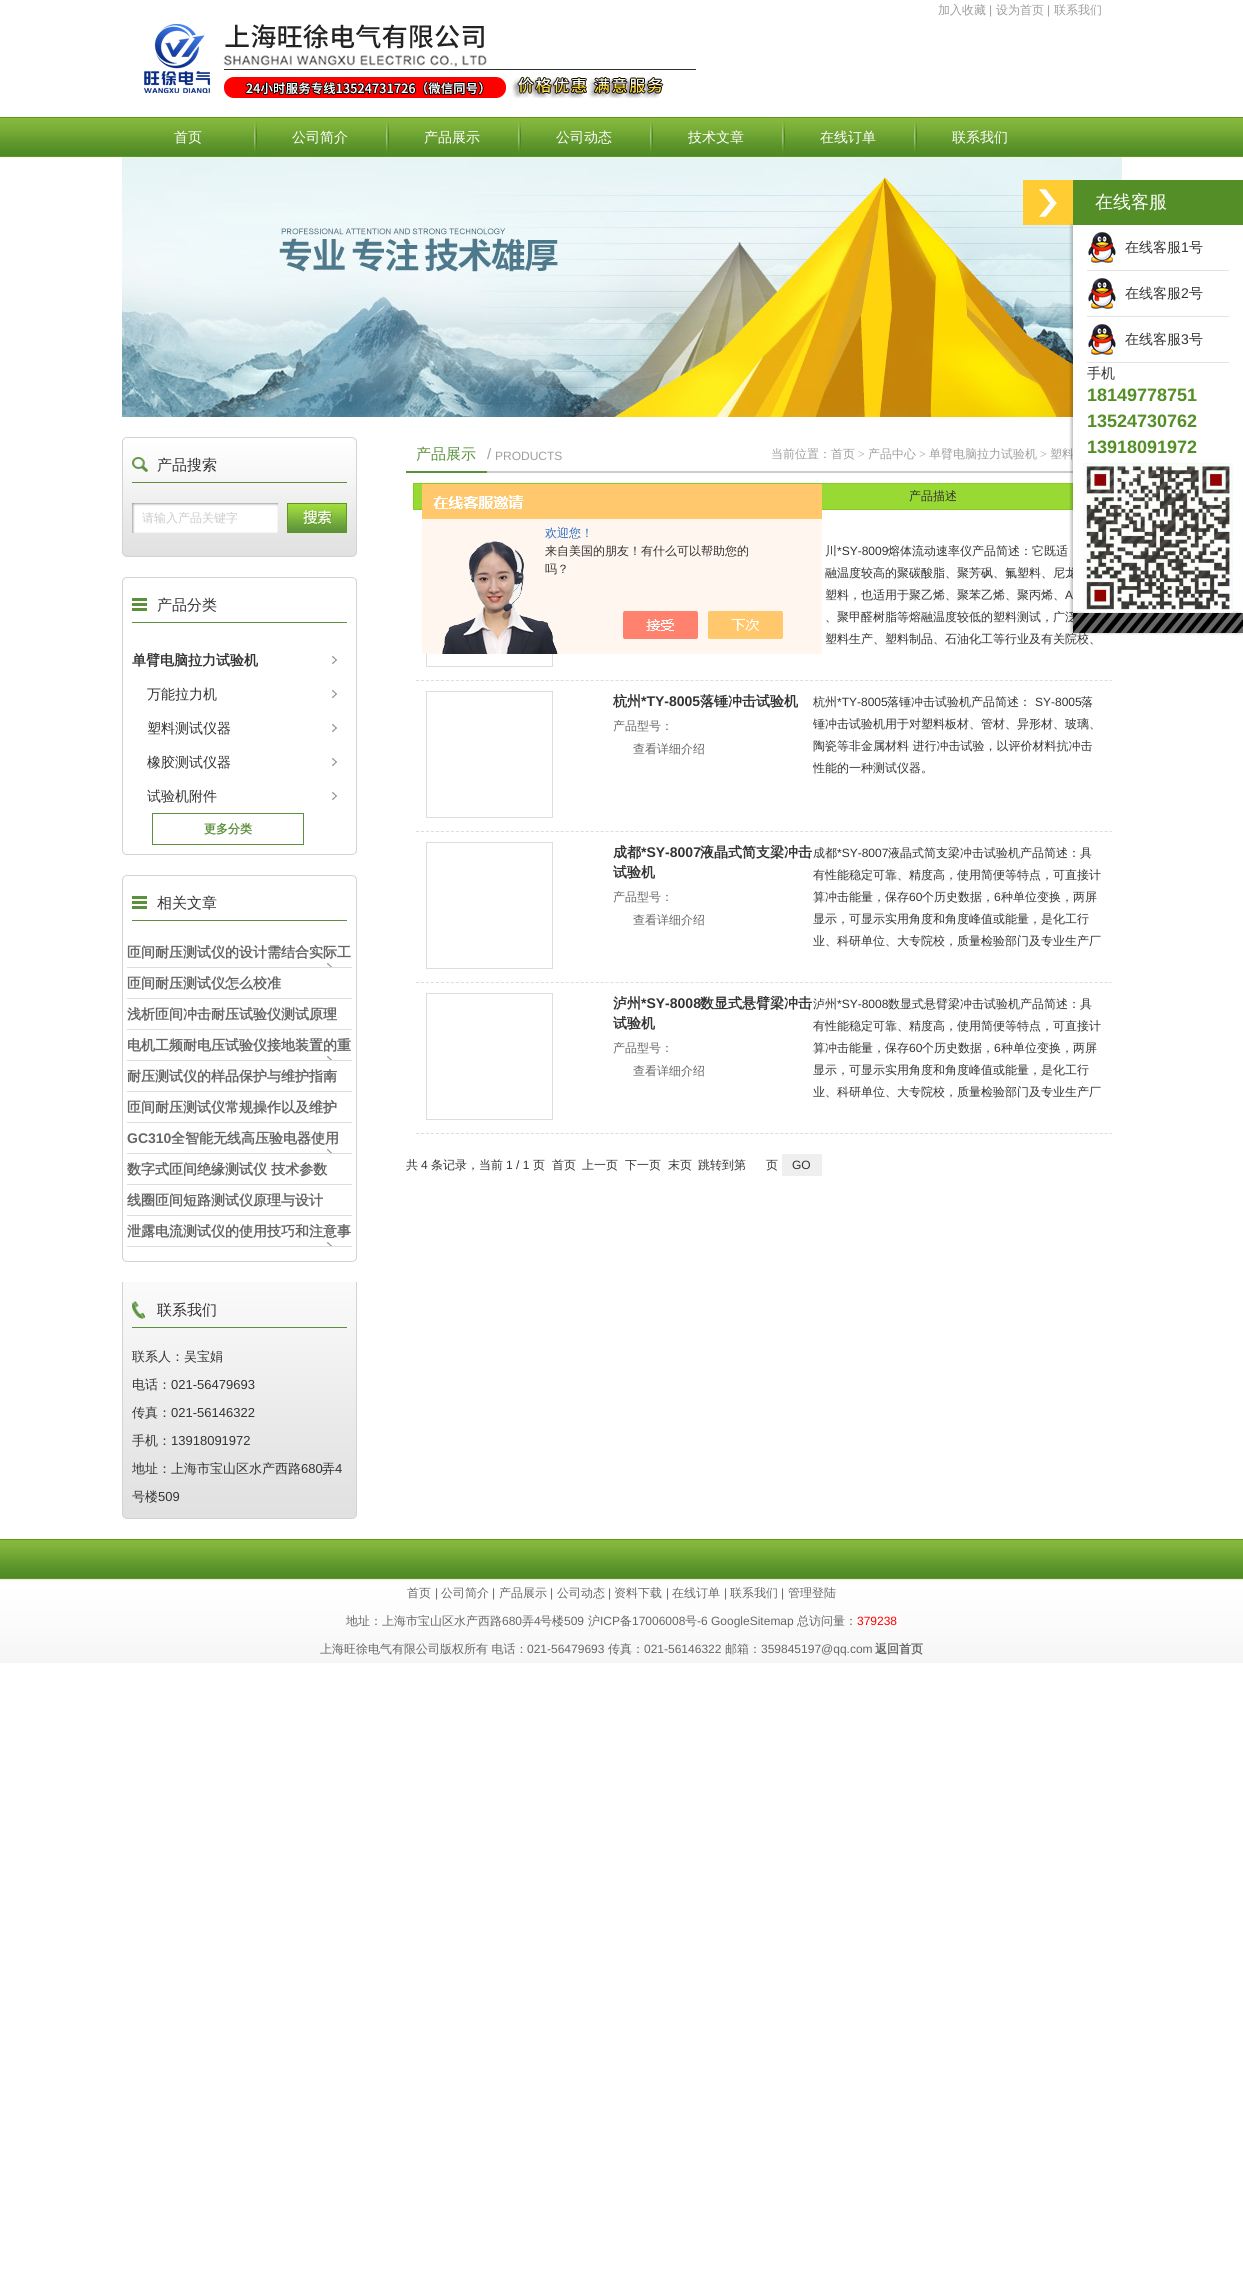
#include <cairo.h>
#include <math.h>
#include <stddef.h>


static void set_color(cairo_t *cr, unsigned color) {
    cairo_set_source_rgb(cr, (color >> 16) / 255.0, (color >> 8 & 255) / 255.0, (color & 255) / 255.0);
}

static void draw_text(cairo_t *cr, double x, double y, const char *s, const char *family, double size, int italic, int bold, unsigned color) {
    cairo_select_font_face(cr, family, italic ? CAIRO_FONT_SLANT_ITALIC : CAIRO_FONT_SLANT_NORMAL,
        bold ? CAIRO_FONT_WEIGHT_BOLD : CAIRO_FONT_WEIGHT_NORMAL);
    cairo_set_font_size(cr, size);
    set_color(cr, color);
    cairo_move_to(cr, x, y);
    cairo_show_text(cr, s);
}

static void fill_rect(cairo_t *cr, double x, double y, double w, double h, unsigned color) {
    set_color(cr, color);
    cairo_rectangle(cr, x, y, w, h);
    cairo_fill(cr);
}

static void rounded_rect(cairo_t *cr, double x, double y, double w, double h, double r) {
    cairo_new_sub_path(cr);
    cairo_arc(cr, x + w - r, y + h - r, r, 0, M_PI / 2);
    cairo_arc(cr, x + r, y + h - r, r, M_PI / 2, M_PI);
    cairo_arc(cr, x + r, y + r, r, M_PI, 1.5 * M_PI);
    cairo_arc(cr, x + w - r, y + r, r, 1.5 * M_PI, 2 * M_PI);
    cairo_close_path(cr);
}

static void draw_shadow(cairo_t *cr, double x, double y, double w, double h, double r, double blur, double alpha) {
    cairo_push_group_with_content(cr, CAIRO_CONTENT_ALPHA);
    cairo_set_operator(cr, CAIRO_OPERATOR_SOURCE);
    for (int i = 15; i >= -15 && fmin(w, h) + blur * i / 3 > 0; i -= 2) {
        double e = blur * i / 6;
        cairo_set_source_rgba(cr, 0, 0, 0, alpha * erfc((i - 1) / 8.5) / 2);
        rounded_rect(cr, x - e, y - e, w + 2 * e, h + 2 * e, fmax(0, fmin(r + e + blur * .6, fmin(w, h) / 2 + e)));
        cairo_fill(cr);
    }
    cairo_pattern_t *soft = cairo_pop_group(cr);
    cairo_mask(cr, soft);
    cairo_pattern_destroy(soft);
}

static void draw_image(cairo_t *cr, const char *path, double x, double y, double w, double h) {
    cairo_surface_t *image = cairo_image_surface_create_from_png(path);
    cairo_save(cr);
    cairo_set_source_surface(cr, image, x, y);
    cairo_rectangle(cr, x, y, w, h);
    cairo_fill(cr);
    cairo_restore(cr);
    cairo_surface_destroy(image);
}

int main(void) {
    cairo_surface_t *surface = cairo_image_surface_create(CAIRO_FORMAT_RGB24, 1243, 2273);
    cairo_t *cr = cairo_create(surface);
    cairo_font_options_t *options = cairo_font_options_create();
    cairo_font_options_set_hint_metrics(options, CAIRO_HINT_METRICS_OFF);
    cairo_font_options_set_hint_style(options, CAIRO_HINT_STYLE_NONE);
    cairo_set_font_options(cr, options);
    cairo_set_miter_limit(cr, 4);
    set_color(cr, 0xFFFFFF);
    cairo_paint(cr);
    draw_text(cr, 938, 14, "加入收藏", "WenQuanYi Zen Hei Medium", 12, 0, 0, 0x9E9E9E);
    draw_text(cr, 989, 14, "|", "Liberation Sans", 12, 0, 0, 0x9E9E9E);
    draw_text(cr, 996, 14, "设为首页", "WenQuanYi Zen Hei Medium", 12, 0, 0, 0x9E9E9E);
    draw_text(cr, 1047, 14, "|", "Liberation Sans", 12, 0, 0, 0x9E9E9E);
    draw_text(cr, 1054, 14, "联系我们", "WenQuanYi Zen Hei Medium", 12, 0, 0, 0x9E9E9E);
    draw_image(cr, "assets/img1.png", 144, 22, 552, 76);
    draw_image(cr, "assets/img2.png", 0, 117, 1243, 40);
    draw_text(cr, 174, 142, "首页", "WenQuanYi Zen Hei Medium", 14, 0, 0, 0xFFFFFF);
    draw_image(cr, "assets/img3.png", 254, 121, 3, 33);
    draw_text(cr, 292, 142, "公司简介", "WenQuanYi Zen Hei Medium", 14, 0, 0, 0xFFFFFF);
    draw_image(cr, "assets/img3.png", 386, 121, 3, 33);
    draw_text(cr, 424, 142, "产品展示", "WenQuanYi Zen Hei Medium", 14, 0, 0, 0xFFFFFF);
    draw_image(cr, "assets/img4.png", 518, 121, 3, 33);
    draw_text(cr, 556, 142, "公司动态", "WenQuanYi Zen Hei Medium", 14, 0, 0, 0xFFFFFF);
    draw_image(cr, "assets/img4.png", 650, 121, 3, 33);
    draw_text(cr, 688, 142, "技术文章", "WenQuanYi Zen Hei Medium", 14, 0, 0, 0xFFFFFF);
    draw_image(cr, "assets/img4.png", 782, 121, 3, 33);
    draw_text(cr, 820, 142, "在线订单", "WenQuanYi Zen Hei Medium", 14, 0, 0, 0xFFFFFF);
    draw_image(cr, "assets/img3.png", 914, 121, 3, 33);
    draw_text(cr, 952, 142, "联系我们", "WenQuanYi Zen Hei Medium", 14, 0, 0, 0xFFFFFF);
    draw_image(cr, "assets/img5.png", 122, 157, 1000, 260);
    draw_image(cr, "assets/img6.png", 1023, 180, 50, 45);
    draw_text(cr, 1050, 458, "塑料", "WenQuanYi Zen Hei Medium", 12, 0, 0, 0x9E9E9E);
    draw_text(cr, 825, 577, "融温度较高的聚碳酸脂、聚芳砜、氟塑料、尼龙", "WenQuanYi Zen Hei Medium", 12, 0, 0, 0x333333);
    draw_text(cr, 825, 621, "、聚甲醛树脂等熔融温度较低的塑料测试，广泛", "WenQuanYi Zen Hei Medium", 12, 0, 0, 0x333333);
    fill_rect(cr, 1073, 225, 49, 388, 0xFFFFFF);
    fill_rect(cr, 487, 471, 586, 2, 0xCCCCCC);
    fill_rect(cr, 414, 484, 659, 25, 0x98DA33);
    fill_rect(cr, 413, 483, 660, 1, 0x89CB25);
    fill_rect(cr, 413, 509, 660, 1, 0x89CB25);
    cairo_save(cr);
    cairo_rectangle(cr, 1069, 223, 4, 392);
    cairo_clip(cr);
    set_color(cr, 0x000000);
    draw_shadow(cr, 1071, 225, 170, 388, 0, 1.5, 0.25);
    cairo_restore(cr);
    fill_rect(cr, 1073, 180, 170, 45, 0x548E26);
    draw_text(cr, 1095, 208, "在线客服", "WenQuanYi Zen Hei Medium", 18, 0, 0, 0xFFFFFF);
    fill_rect(cr, 1087, 270, 142, 1, 0xE3E3E3);
    draw_image(cr, "assets/img7.png", 1088, 232, 29, 33);
    draw_text(cr, 1125, 252, "在线客服", "WenQuanYi Zen Hei Medium", 14, 0, 0, 0x333333);
    draw_text(cr, 1181, 252, "1", "Liberation Sans", 14, 0, 0, 0x333333);
    draw_text(cr, 1189, 252, "号", "WenQuanYi Zen Hei Medium", 14, 0, 0, 0x333333);
    fill_rect(cr, 1087, 316, 142, 1, 0xE3E3E3);
    draw_image(cr, "assets/img7.png", 1088, 278, 29, 33);
    draw_text(cr, 1125, 298, "在线客服", "WenQuanYi Zen Hei Medium", 14, 0, 0, 0x333333);
    draw_text(cr, 1181, 298, "2", "Liberation Sans", 14, 0, 0, 0x333333);
    draw_text(cr, 1189, 298, "号", "WenQuanYi Zen Hei Medium", 14, 0, 0, 0x333333);
    fill_rect(cr, 1087, 362, 142, 1, 0xE3E3E3);
    draw_image(cr, "assets/img7.png", 1088, 324, 29, 33);
    draw_text(cr, 1125, 344, "在线客服", "WenQuanYi Zen Hei Medium", 14, 0, 0, 0x333333);
    draw_text(cr, 1181, 344, "3", "Liberation Sans", 14, 0, 0, 0x333333);
    draw_text(cr, 1189, 344, "号", "WenQuanYi Zen Hei Medium", 14, 0, 0, 0x333333);
    draw_text(cr, 1087, 378, "手机", "WenQuanYi Zen Hei Medium", 14, 0, 0, 0x333333);
    draw_text(cr, 1087, 401, "18149778751", "Liberation Sans", 18, 0, 1, 0x548E26);
    draw_text(cr, 1087, 427, "13524730762", "Liberation Sans", 18, 0, 1, 0x548E26);
    draw_text(cr, 1087, 453, "13918091972", "Liberation Sans", 18, 0, 1, 0x548E26);
    set_color(cr, 0x000000);
    draw_shadow(cr, 1071, 613, 170, 20, 0, 1.5, 0.25);
    draw_image(cr, "assets/img8.png", 1083, 463, 150, 150);
    draw_text(cr, 825, 643, "塑料生产、塑料制品、石油化工等行业及有关院校、", "WenQuanYi Zen Hei Medium", 12, 0, 0, 0x333333);
    draw_image(cr, "assets/img9.png", 1073, 613, 170, 20);
    draw_image(cr, "assets/img10.png", 122, 437, 235, 120);
    draw_image(cr, "assets/img11.png", 132, 457, 16, 15);
    fill_rect(cr, 132, 482, 215, 1, 0x5B913D);
    draw_text(cr, 157, 470, "产品搜索", "WenQuanYi Zen Hei Medium", 15, 0, 0, 0x333333);
    draw_image(cr, "assets/img12.png", 132, 503, 146, 30);
    draw_text(cr, 142, 522, "请输入产品关键字", "WenQuanYi Zen Hei Medium", 12, 0, 0, 0xCCCCCC);
    draw_image(cr, "assets/img13.png", 287, 503, 60, 30);
    draw_image(cr, "assets/img14.png", 122, 577, 235, 274);
    draw_image(cr, "assets/img15.png", 132, 598, 15, 13);
    fill_rect(cr, 132, 622, 215, 1, 0x5B913D);
    draw_text(cr, 157, 610, "产品分类", "WenQuanYi Zen Hei Medium", 15, 0, 0, 0x333333);
    draw_image(cr, "assets/img16.png", 332, 656, 5, 8);
    draw_text(cr, 132, 665, "单臂电脑拉力试验机", "WenQuanYi Zen Hei", 14, 0, 1, 0x333333);
    draw_image(cr, "assets/img16.png", 332, 690, 5, 8);
    draw_text(cr, 147, 699, "万能拉力机", "WenQuanYi Zen Hei Medium", 14, 0, 0, 0x333333);
    draw_image(cr, "assets/img16.png", 332, 724, 5, 8);
    draw_text(cr, 147, 733, "塑料测试仪器", "WenQuanYi Zen Hei Medium", 14, 0, 0, 0x333333);
    draw_image(cr, "assets/img16.png", 332, 758, 5, 8);
    draw_text(cr, 147, 767, "橡胶测试仪器", "WenQuanYi Zen Hei Medium", 14, 0, 0, 0x333333);
    draw_image(cr, "assets/img16.png", 332, 792, 5, 8);
    draw_text(cr, 147, 801, "试验机附件", "WenQuanYi Zen Hei Medium", 14, 0, 0, 0x333333);
    cairo_rectangle(cr, 152.5, 813.5, 151, 31);
    set_color(cr, 0x5B913D);
    cairo_set_line_width(cr, 1);
    cairo_stroke(cr);
    draw_text(cr, 204, 833, "更多分类", "WenQuanYi Zen Hei", 12, 0, 1, 0x5B913D);
    draw_image(cr, "assets/img17.png", 122, 851, 235, 4);
    draw_image(cr, "assets/img18.png", 122, 875, 235, 383);
    draw_image(cr, "assets/img15.png", 132, 896, 15, 13);
    fill_rect(cr, 132, 920, 215, 1, 0x5B913D);
    draw_text(cr, 157, 908, "相关文章", "WenQuanYi Zen Hei Medium", 15, 0, 0, 0x333333);
    fill_rect(cr, 127, 967, 225, 1, 0xDDDDDD);
    draw_image(cr, "assets/img19.png", 327, 963, 5, 4);
    draw_text(cr, 127, 957, "匝间耐压测试仪的设计需结合实际工", "WenQuanYi Zen Hei", 14, 0, 1, 0x666666);
    fill_rect(cr, 127, 998, 225, 1, 0xDDDDDD);
    draw_text(cr, 127, 988, "匝间耐压测试仪怎么校准", "WenQuanYi Zen Hei", 14, 0, 1, 0x666666);
    fill_rect(cr, 127, 1029, 225, 1, 0xDDDDDD);
    draw_image(cr, "assets/img16.png", 327, 1010, 5, 8);
    draw_text(cr, 127, 1019, "浅析匝间冲击耐压试验仪测试原理", "WenQuanYi Zen Hei", 14, 0, 1, 0x666666);
    fill_rect(cr, 127, 1060, 225, 1, 0xDDDDDD);
    draw_image(cr, "assets/img19.png", 327, 1056, 5, 4);
    draw_text(cr, 127, 1050, "电机工频耐电压试验仪接地装置的重", "WenQuanYi Zen Hei", 14, 0, 1, 0x666666);
    fill_rect(cr, 127, 1091, 225, 1, 0xDDDDDD);
    draw_image(cr, "assets/img16.png", 327, 1072, 5, 8);
    draw_text(cr, 127, 1081, "耐压测试仪的样品保护与维护指南", "WenQuanYi Zen Hei", 14, 0, 1, 0x666666);
    fill_rect(cr, 127, 1122, 225, 1, 0xDDDDDD);
    draw_image(cr, "assets/img16.png", 327, 1103, 5, 8);
    draw_text(cr, 127, 1112, "匝间耐压测试仪常规操作以及维护", "WenQuanYi Zen Hei", 14, 0, 1, 0x666666);
    fill_rect(cr, 127, 1153, 225, 1, 0xDDDDDD);
    draw_image(cr, "assets/img19.png", 327, 1149, 5, 4);
    draw_text(cr, 127, 1143, "GC310", "Liberation Sans", 14, 0, 1, 0x666666);
    draw_text(cr, 171, 1143, "全智能无线高压验电器使用", "WenQuanYi Zen Hei", 14, 0, 1, 0x666666);
    fill_rect(cr, 127, 1184, 225, 1, 0xDDDDDD);
    draw_text(cr, 127, 1174, "数字式匝间绝缘测试仪 技术参数", "WenQuanYi Zen Hei", 14, 0, 1, 0x666666);
    fill_rect(cr, 127, 1215, 225, 1, 0xDDDDDD);
    draw_text(cr, 127, 1205, "线圈匝间短路测试仪原理与设计", "WenQuanYi Zen Hei", 14, 0, 1, 0x666666);
    fill_rect(cr, 127, 1246, 225, 1, 0xDDDDDD);
    draw_image(cr, "assets/img19.png", 327, 1242, 5, 4);
    draw_text(cr, 127, 1236, "泄露电流测试仪的使用技巧和注意事", "WenQuanYi Zen Hei", 14, 0, 1, 0x666666);
    draw_image(cr, "assets/img17.png", 122, 1258, 235, 4);
    draw_image(cr, "assets/img20.png", 122, 1282, 235, 237);
    draw_image(cr, "assets/img21.png", 132, 1301, 13, 18);
    fill_rect(cr, 132, 1327, 215, 1, 0x5B913D);
    draw_text(cr, 157, 1315, "联系我们", "WenQuanYi Zen Hei Medium", 15, 0, 0, 0x333333);
    draw_text(cr, 132, 1361, "联系人：吴宝娟", "WenQuanYi Zen Hei Medium", 13, 0, 0, 0x333333);
    draw_text(cr, 132, 1389, "电话：", "WenQuanYi Zen Hei Medium", 13, 0, 0, 0x333333);
    draw_text(cr, 171, 1389, "021-56479693", "Liberation Sans", 13, 0, 0, 0x333333);
    draw_text(cr, 132, 1417, "传真：", "WenQuanYi Zen Hei Medium", 13, 0, 0, 0x333333);
    draw_text(cr, 171, 1417, "021-56146322", "Liberation Sans", 13, 0, 0, 0x333333);
    draw_text(cr, 132, 1445, "手机：", "WenQuanYi Zen Hei Medium", 13, 0, 0, 0x333333);
    draw_text(cr, 171, 1445, "13918091972", "Liberation Sans", 13, 0, 0, 0x333333);
    draw_text(cr, 132, 1473, "地址：上海市宝山区水产西路", "WenQuanYi Zen Hei Medium", 13, 0, 0, 0x333333);
    draw_text(cr, 301, 1473, "680", "Liberation Sans", 13, 0, 0, 0x333333);
    draw_text(cr, 322, 1473, "弄", "WenQuanYi Zen Hei Medium", 13, 0, 0, 0x333333);
    draw_text(cr, 335, 1473, "4", "Liberation Sans", 13, 0, 0, 0x333333);
    draw_text(cr, 132, 1501, "号楼", "WenQuanYi Zen Hei Medium", 13, 0, 0, 0x333333);
    draw_text(cr, 158, 1501, "509", "Liberation Sans", 13, 0, 0, 0x333333);
    fill_rect(cr, 406, 471, 81, 2, 0x5B913D);
    draw_text(cr, 416, 459, "产品展示", "WenQuanYi Zen Hei Medium", 15, 0, 0, 0x5B913D);
    draw_text(cr, 487, 459, "/", "Liberation Sans", 15, 0, 0, 0x9E9E9E);
    draw_text(cr, 495, 460, "PRODUCTS", "Liberation Sans", 12, 0, 0, 0x9E9E9E);
    draw_text(cr, 771, 458, "当前位置：首页", "WenQuanYi Zen Hei Medium", 12, 0, 0, 0x9E9E9E);
    draw_text(cr, 858, 458, ">", "Liberation Serif", 12, 0, 0, 0x9E9E9E);
    draw_text(cr, 868, 458, "产品中心", "WenQuanYi Zen Hei Medium", 12, 0, 0, 0x9E9E9E);
    draw_text(cr, 919, 458, ">", "Liberation Serif", 12, 0, 0, 0x9E9E9E);
    draw_text(cr, 929, 458, "单臂电脑拉力试验机", "WenQuanYi Zen Hei Medium", 12, 0, 0, 0x9E9E9E);
    draw_text(cr, 1040, 458, ">", "Liberation Serif", 12, 0, 0, 0x9E9E9E);
    fill_rect(cr, 413, 483, 1, 27, 0x89CB25);
    draw_text(cr, 909, 500, "产品描述", "WenQuanYi Zen Hei Medium", 12, 0, 0, 0x333333);
    cairo_new_path(cr);
    cairo_move_to(cr, 416, 680.5);
    cairo_line_to(cr, 1112, 680.5);
    set_color(cr, 0xDDDDDD);
    cairo_set_dash(cr, (double[]){3, 1.99}, 2, 0);
    cairo_stroke(cr);
    cairo_rectangle(cr, 426.5, 540.5, 126, 126);
    cairo_set_dash(cr, NULL, 0, 0);
    cairo_stroke(cr);
    draw_text(cr, 825, 555, "川", "WenQuanYi Zen Hei Medium", 12, 0, 0, 0x333333);
    draw_text(cr, 837, 555, "*SY-8009", "Liberation Sans", 12, 0, 0, 0x333333);
    draw_text(cr, 888, 555, "熔体流动速率仪产品简述：它既适", "WenQuanYi Zen Hei Medium", 12, 0, 0, 0x333333);
    draw_text(cr, 825, 599, "塑料，也适用于聚乙烯、聚苯乙烯、聚丙烯、", "WenQuanYi Zen Hei Medium", 12, 0, 0, 0x333333);
    draw_text(cr, 1065, 599, "A", "Liberation Sans", 12, 0, 0, 0x333333);
    cairo_new_path(cr);
    cairo_move_to(cr, 416, 831.5);
    cairo_line_to(cr, 1112, 831.5);
    set_color(cr, 0xDDDDDD);
    cairo_set_dash(cr, (double[]){3, 1.99}, 2, 0);
    cairo_stroke(cr);
    cairo_rectangle(cr, 426.5, 691.5, 126, 126);
    cairo_set_dash(cr, NULL, 0, 0);
    cairo_stroke(cr);
    draw_text(cr, 613, 706, "杭州", "WenQuanYi Zen Hei", 14, 0, 1, 0x333333);
    draw_text(cr, 641, 706, "*TY-8005", "Liberation Sans", 14, 0, 1, 0x333333);
    draw_text(cr, 700, 706, "落锤冲击试验机", "WenQuanYi Zen Hei", 14, 0, 1, 0x333333);
    draw_text(cr, 613, 730, "产品型号：", "WenQuanYi Zen Hei Medium", 12, 0, 0, 0x666666);
    draw_text(cr, 633, 753, "查看详细介绍", "WenQuanYi Zen Hei Medium", 12, 0, 0, 0x666666);
    cairo_save(cr);
    cairo_rectangle(cr, 813, 691, 290, 114);
    cairo_clip(cr);
    draw_text(cr, 813, 706, "杭州", "WenQuanYi Zen Hei Medium", 12, 0, 0, 0x333333);
    cairo_restore(cr);
    draw_text(cr, 837, 706, "*TY-8005", "Liberation Sans", 12, 0, 0, 0x333333);
    draw_text(cr, 887, 706, "落锤冲击试验机产品简述：", "WenQuanYi Zen Hei Medium", 12, 0, 0, 0x333333);
    draw_text(cr, 1035, 706, "SY-8005", "Liberation Sans", 12, 0, 0, 0x333333);
    draw_text(cr, 1081, 706, "落", "WenQuanYi Zen Hei Medium", 12, 0, 0, 0x333333);
    draw_text(cr, 813, 728, "锤冲击试验机用于对塑料板材、管材、异形材、玻璃、", "WenQuanYi Zen Hei Medium", 12, 0, 0, 0x333333);
    draw_text(cr, 813, 750, "陶瓷等非金属材料 进行冲击试验，以评价材料抗冲击", "WenQuanYi Zen Hei Medium", 12, 0, 0, 0x333333);
    cairo_save(cr);
    cairo_rectangle(cr, 813, 691, 290, 114);
    cairo_clip(cr);
    draw_text(cr, 813, 772, "性能的一种测试仪器。", "WenQuanYi Zen Hei Medium", 12, 0, 0, 0x333333);
    cairo_restore(cr);
    cairo_new_path(cr);
    cairo_move_to(cr, 416, 982.5);
    cairo_line_to(cr, 1112, 982.5);
    set_color(cr, 0xDDDDDD);
    cairo_set_dash(cr, (double[]){3, 1.99}, 2, 0);
    cairo_stroke(cr);
    cairo_rectangle(cr, 426.5, 842.5, 126, 126);
    cairo_set_dash(cr, NULL, 0, 0);
    cairo_stroke(cr);
    draw_text(cr, 613, 857, "成都", "WenQuanYi Zen Hei", 14, 0, 1, 0x333333);
    draw_text(cr, 641, 857, "*SY-8007", "Liberation Sans", 14, 0, 1, 0x333333);
    draw_text(cr, 700, 857, "液晶式简支梁冲击", "WenQuanYi Zen Hei", 14, 0, 1, 0x333333);
    draw_text(cr, 613, 877, "试验机", "WenQuanYi Zen Hei", 14, 0, 1, 0x333333);
    draw_text(cr, 613, 901, "产品型号：", "WenQuanYi Zen Hei Medium", 12, 0, 0, 0x666666);
    draw_text(cr, 633, 924, "查看详细介绍", "WenQuanYi Zen Hei Medium", 12, 0, 0, 0x666666);
    draw_text(cr, 813, 857, "成都", "WenQuanYi Zen Hei Medium", 12, 0, 0, 0x333333);
    draw_text(cr, 837, 857, "*SY-8007", "Liberation Sans", 12, 0, 0, 0x333333);
    draw_text(cr, 888, 857, "液晶式简支梁冲击试验机产品简述：具", "WenQuanYi Zen Hei Medium", 12, 0, 0, 0x333333);
    draw_text(cr, 813, 879, "有性能稳定可靠、精度高，使用简便等特点，可直接计", "WenQuanYi Zen Hei Medium", 12, 0, 0, 0x333333);
    draw_text(cr, 813, 901, "算冲击能量，保存", "WenQuanYi Zen Hei Medium", 12, 0, 0, 0x333333);
    draw_text(cr, 909, 901, "60", "Liberation Sans", 12, 0, 0, 0x333333);
    draw_text(cr, 922, 901, "个历史数据，", "WenQuanYi Zen Hei Medium", 12, 0, 0, 0x333333);
    draw_text(cr, 994, 901, "6", "Liberation Sans", 12, 0, 0, 0x333333);
    draw_text(cr, 1001, 901, "种单位变换，两屏", "WenQuanYi Zen Hei Medium", 12, 0, 0, 0x333333);
    draw_text(cr, 813, 923, "显示，可显示实用角度和角度峰值或能量，是化工行", "WenQuanYi Zen Hei Medium", 12, 0, 0, 0x333333);
    draw_text(cr, 813, 945, "业、科研单位、大专院校，质量检验部门及专业生产厂", "WenQuanYi Zen Hei Medium", 12, 0, 0, 0x333333);
    cairo_new_path(cr);
    cairo_move_to(cr, 416, 1133.5);
    cairo_line_to(cr, 1112, 1133.5);
    set_color(cr, 0xDDDDDD);
    cairo_set_dash(cr, (double[]){3, 1.99}, 2, 0);
    cairo_stroke(cr);
    cairo_rectangle(cr, 426.5, 993.5, 126, 126);
    cairo_set_dash(cr, NULL, 0, 0);
    cairo_stroke(cr);
    draw_text(cr, 613, 1008, "泸州", "WenQuanYi Zen Hei", 14, 0, 1, 0x333333);
    draw_text(cr, 641, 1008, "*SY-8008", "Liberation Sans", 14, 0, 1, 0x333333);
    draw_text(cr, 700, 1008, "数显式悬臂梁冲击", "WenQuanYi Zen Hei", 14, 0, 1, 0x333333);
    draw_text(cr, 613, 1028, "试验机", "WenQuanYi Zen Hei", 14, 0, 1, 0x333333);
    draw_text(cr, 613, 1052, "产品型号：", "WenQuanYi Zen Hei Medium", 12, 0, 0, 0x666666);
    draw_text(cr, 633, 1075, "查看详细介绍", "WenQuanYi Zen Hei Medium", 12, 0, 0, 0x666666);
    draw_text(cr, 813, 1008, "泸州", "WenQuanYi Zen Hei Medium", 12, 0, 0, 0x333333);
    draw_text(cr, 837, 1008, "*SY-8008", "Liberation Sans", 12, 0, 0, 0x333333);
    draw_text(cr, 888, 1008, "数显式悬臂梁冲击试验机产品简述：具", "WenQuanYi Zen Hei Medium", 12, 0, 0, 0x333333);
    draw_text(cr, 813, 1030, "有性能稳定可靠、精度高，使用简便等特点，可直接计", "WenQuanYi Zen Hei Medium", 12, 0, 0, 0x333333);
    draw_text(cr, 813, 1052, "算冲击能量，保存", "WenQuanYi Zen Hei Medium", 12, 0, 0, 0x333333);
    draw_text(cr, 909, 1052, "60", "Liberation Sans", 12, 0, 0, 0x333333);
    draw_text(cr, 922, 1052, "个历史数据，", "WenQuanYi Zen Hei Medium", 12, 0, 0, 0x333333);
    draw_text(cr, 994, 1052, "6", "Liberation Sans", 12, 0, 0, 0x333333);
    draw_text(cr, 1001, 1052, "种单位变换，两屏", "WenQuanYi Zen Hei Medium", 12, 0, 0, 0x333333);
    draw_text(cr, 813, 1074, "显示，可显示实用角度和角度峰值或能量，是化工行", "WenQuanYi Zen Hei Medium", 12, 0, 0, 0x333333);
    draw_text(cr, 813, 1096, "业、科研单位、大专院校，质量检验部门及专业生产厂", "WenQuanYi Zen Hei Medium", 12, 0, 0, 0x333333);
    draw_text(cr, 406, 1169, "共", "WenQuanYi Zen Hei Medium", 12, 0, 0, 0x333333);
    draw_text(cr, 421, 1169, "4", "Liberation Sans", 12, 0, 0, 0x333333);
    draw_text(cr, 431, 1169, "条记录，当前", "WenQuanYi Zen Hei Medium", 12, 0, 0, 0x333333);
    draw_text(cr, 506, 1169, "1 / 1", "Liberation Sans", 12, 0, 0, 0x333333);
    draw_text(cr, 533, 1169, "页", "WenQuanYi Zen Hei Medium", 12, 0, 0, 0x333333);
    draw_text(cr, 552, 1169, "首页", "WenQuanYi Zen Hei Medium", 12, 0, 0, 0x333333);
    draw_text(cr, 582, 1169, "上一页", "WenQuanYi Zen Hei Medium", 12, 0, 0, 0x333333);
    draw_text(cr, 625, 1169, "下一页", "WenQuanYi Zen Hei Medium", 12, 0, 0, 0x333333);
    draw_text(cr, 668, 1169, "末页", "WenQuanYi Zen Hei Medium", 12, 0, 0, 0x333333);
    draw_text(cr, 698, 1169, "跳转到第", "WenQuanYi Zen Hei Medium", 12, 0, 0, 0x333333);
    draw_text(cr, 766, 1169, "页", "WenQuanYi Zen Hei Medium", 12, 0, 0, 0x333333);
    fill_rect(cr, 782, 1154, 40, 22, 0xEFEFEF);
    draw_text(cr, 792, 1169, "GO", "Liberation Sans", 12, 0, 0, 0x333333);
    draw_image(cr, "assets/img22.png", 422, 484, 400, 170);
    draw_text(cr, 545, 537, "欢迎您！", "WenQuanYi Zen Hei Medium", 12, 0, 0, 0x2E6EC6);
    draw_text(cr, 545, 555, "来自美国的朋友！有什么可以帮助您的", "WenQuanYi Zen Hei Medium", 12, 0, 0, 0x333333);
    draw_text(cr, 545, 573, "吗？", "WenQuanYi Zen Hei Medium", 12, 0, 0, 0x333333);
    draw_image(cr, "assets/img23.png", 0, 1539, 1243, 124);
    draw_text(cr, 407, 1597, "首页", "WenQuanYi Zen Hei Medium", 12, 0, 0, 0x666666);
    draw_text(cr, 435, 1597, "|", "Liberation Sans", 12, 0, 0, 0x666666);
    draw_text(cr, 441, 1597, "公司简介", "WenQuanYi Zen Hei Medium", 12, 0, 0, 0x666666);
    draw_text(cr, 492, 1597, "|", "Liberation Sans", 12, 0, 0, 0x666666);
    draw_text(cr, 499, 1597, "产品展示", "WenQuanYi Zen Hei Medium", 12, 0, 0, 0x666666);
    draw_text(cr, 550, 1597, "|", "Liberation Sans", 12, 0, 0, 0x666666);
    draw_text(cr, 557, 1597, "公司动态", "WenQuanYi Zen Hei Medium", 12, 0, 0, 0x666666);
    draw_text(cr, 608, 1597, "|", "Liberation Sans", 12, 0, 0, 0x666666);
    draw_text(cr, 614, 1597, "资料下载", "WenQuanYi Zen Hei Medium", 12, 0, 0, 0x666666);
    draw_text(cr, 666, 1597, "|", "Liberation Sans", 12, 0, 0, 0x666666);
    draw_text(cr, 672, 1597, "在线订单", "WenQuanYi Zen Hei Medium", 12, 0, 0, 0x666666);
    draw_text(cr, 724, 1597, "|", "Liberation Sans", 12, 0, 0, 0x666666);
    draw_text(cr, 730, 1597, "联系我们", "WenQuanYi Zen Hei Medium", 12, 0, 0, 0x666666);
    draw_text(cr, 781, 1597, "|", "Liberation Sans", 12, 0, 0, 0x666666);
    draw_text(cr, 788, 1597, "管理登陆", "WenQuanYi Zen Hei Medium", 12, 0, 0, 0x666666);
    draw_text(cr, 346, 1625, "地址：上海市宝山区水产西路", "WenQuanYi Zen Hei Medium", 12, 0, 0, 0x666666);
    draw_text(cr, 502, 1625, "680", "Liberation Sans", 12, 0, 0, 0x666666);
    draw_text(cr, 522, 1625, "弄", "WenQuanYi Zen Hei Medium", 12, 0, 0, 0x666666);
    draw_text(cr, 534, 1625, "4", "Liberation Sans", 12, 0, 0, 0x666666);
    draw_text(cr, 540, 1625, "号楼", "WenQuanYi Zen Hei Medium", 12, 0, 0, 0x666666);
    draw_text(cr, 564, 1625, "509", "Liberation Sans", 12, 0, 0, 0x666666);
    draw_text(cr, 588, 1625, "沪", "WenQuanYi Zen Hei Medium", 12, 0, 0, 0x666666);
    draw_text(cr, 600, 1625, "ICP", "Liberation Sans", 12, 0, 0, 0x666666);
    draw_text(cr, 620, 1625, "备", "WenQuanYi Zen Hei Medium", 12, 0, 0, 0x666666);
    draw_text(cr, 632, 1625, "17006008", "Liberation Sans", 12, 0, 0, 0x666666);
    draw_text(cr, 685, 1625, "号", "WenQuanYi Zen Hei Medium", 12, 0, 0, 0x666666);
    draw_text(cr, 697, 1625, "-6 GoogleSitemap", "Liberation Sans", 12, 0, 0, 0x666666);
    draw_text(cr, 797, 1625, "总访问量：", "WenQuanYi Zen Hei Medium", 12, 0, 0, 0x666666);
    draw_text(cr, 857, 1625, "379238", "Liberation Sans", 12, 0, 0, 0xFF0000);
    draw_text(cr, 320, 1653, "上海旺徐电气有限公司版权所有 电话：", "WenQuanYi Zen Hei Medium", 12, 0, 0, 0x666666);
    draw_text(cr, 527, 1653, "021-56479693", "Liberation Sans", 12, 0, 0, 0x666666);
    draw_text(cr, 608, 1653, "传真：", "WenQuanYi Zen Hei Medium", 12, 0, 0, 0x666666);
    draw_text(cr, 644, 1653, "021-56146322", "Liberation Sans", 12, 0, 0, 0x666666);
    draw_text(cr, 725, 1653, "邮箱：", "WenQuanYi Zen Hei Medium", 12, 0, 0, 0x666666);
    draw_text(cr, 761, 1653, "359845197@qq.com", "Liberation Sans", 12, 0, 0, 0x666666);
    draw_text(cr, 875, 1653, "返回首页", "WenQuanYi Zen Hei", 12, 0, 1, 0x666666);
    cairo_surface_write_to_png(surface, "output.png");
    cairo_font_options_destroy(options);
    cairo_destroy(cr);
    cairo_surface_destroy(surface);
    return 0;
}
